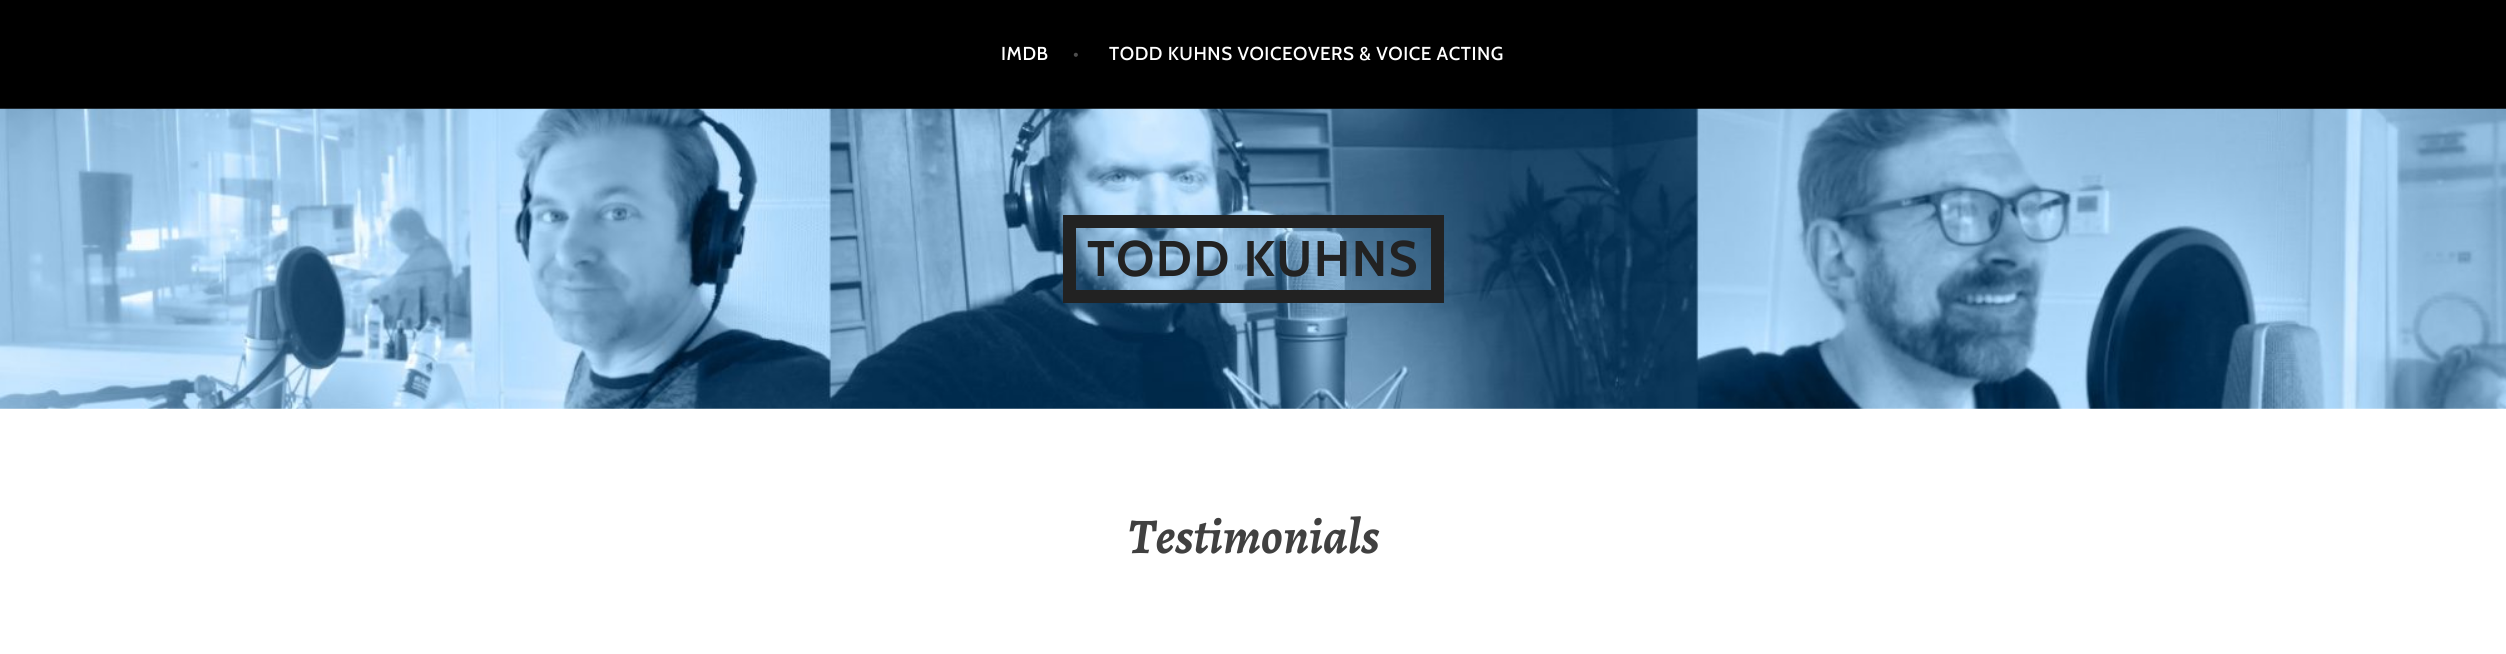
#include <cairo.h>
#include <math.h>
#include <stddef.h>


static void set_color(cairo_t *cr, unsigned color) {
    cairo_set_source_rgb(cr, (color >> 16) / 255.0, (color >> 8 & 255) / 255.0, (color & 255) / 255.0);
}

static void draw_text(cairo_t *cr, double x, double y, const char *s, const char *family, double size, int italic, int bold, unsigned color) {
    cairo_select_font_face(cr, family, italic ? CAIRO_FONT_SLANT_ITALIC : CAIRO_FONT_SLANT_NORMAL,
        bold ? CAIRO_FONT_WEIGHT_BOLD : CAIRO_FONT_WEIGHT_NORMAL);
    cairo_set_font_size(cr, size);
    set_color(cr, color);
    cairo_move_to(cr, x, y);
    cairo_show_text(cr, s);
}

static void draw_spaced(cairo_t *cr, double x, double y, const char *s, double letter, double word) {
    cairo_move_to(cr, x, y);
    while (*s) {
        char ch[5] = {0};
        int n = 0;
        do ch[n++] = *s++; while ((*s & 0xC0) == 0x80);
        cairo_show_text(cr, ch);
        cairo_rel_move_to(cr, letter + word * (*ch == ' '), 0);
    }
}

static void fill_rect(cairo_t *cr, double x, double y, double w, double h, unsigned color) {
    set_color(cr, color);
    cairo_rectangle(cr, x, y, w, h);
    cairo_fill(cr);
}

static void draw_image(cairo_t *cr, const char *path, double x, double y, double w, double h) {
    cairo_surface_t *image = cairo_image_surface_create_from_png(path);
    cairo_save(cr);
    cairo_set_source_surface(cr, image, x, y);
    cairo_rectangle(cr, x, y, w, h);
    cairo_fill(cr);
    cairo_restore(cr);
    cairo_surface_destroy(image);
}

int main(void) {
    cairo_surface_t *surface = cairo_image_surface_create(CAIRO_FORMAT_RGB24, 2506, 654);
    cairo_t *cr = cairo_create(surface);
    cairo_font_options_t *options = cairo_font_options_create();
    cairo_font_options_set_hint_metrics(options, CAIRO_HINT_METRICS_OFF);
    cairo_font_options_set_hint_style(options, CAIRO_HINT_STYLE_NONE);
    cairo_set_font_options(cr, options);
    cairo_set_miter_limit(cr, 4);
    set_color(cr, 0xFFFFFF);
    cairo_paint(cr);
    fill_rect(cr, 0, 0, 2506, 109, 0x000000);
    cairo_select_font_face(cr, "Cabin Medium", CAIRO_FONT_SLANT_NORMAL, CAIRO_FONT_WEIGHT_NORMAL);
    cairo_set_font_size(cr, 18.75);
    set_color(cr, 0xFFFFFF);
    draw_spaced(cr, 1001, 60, "IMDB", 0.55, 0);
    set_color(cr, 0x4D4D4D);
    draw_spaced(cr, 1073, 60, "•", 0.55, 0);
    set_color(cr, 0xFFFFFF);
    draw_spaced(cr, 1109, 60, "TODD KUHNS VOICEOVERS & VOICE ACTING", 0.55, 0);
    draw_image(cr, "assets/img1.png", 0, 108, 2506, 301);
    cairo_rectangle(cr, 1069.5, 221.5, 368, 75);
    set_color(cr, 0x222222);
    cairo_set_line_width(cr, 13);
    cairo_stroke(cr);
    cairo_select_font_face(cr, "Cabin", CAIRO_FONT_SLANT_NORMAL, CAIRO_FONT_WEIGHT_BOLD);
    cairo_set_font_size(cr, 50);
    draw_spaced(cr, 1087, 276, "TODD KUHNS", 1.5, 0);
    draw_text(cr, 1128, 553, "Testimonials", "Alegreya", 50, 1, 1, 0x404040);
    cairo_surface_write_to_png(surface, "output.png");
    cairo_font_options_destroy(options);
    cairo_destroy(cr);
    cairo_surface_destroy(surface);
    return 0;
}
